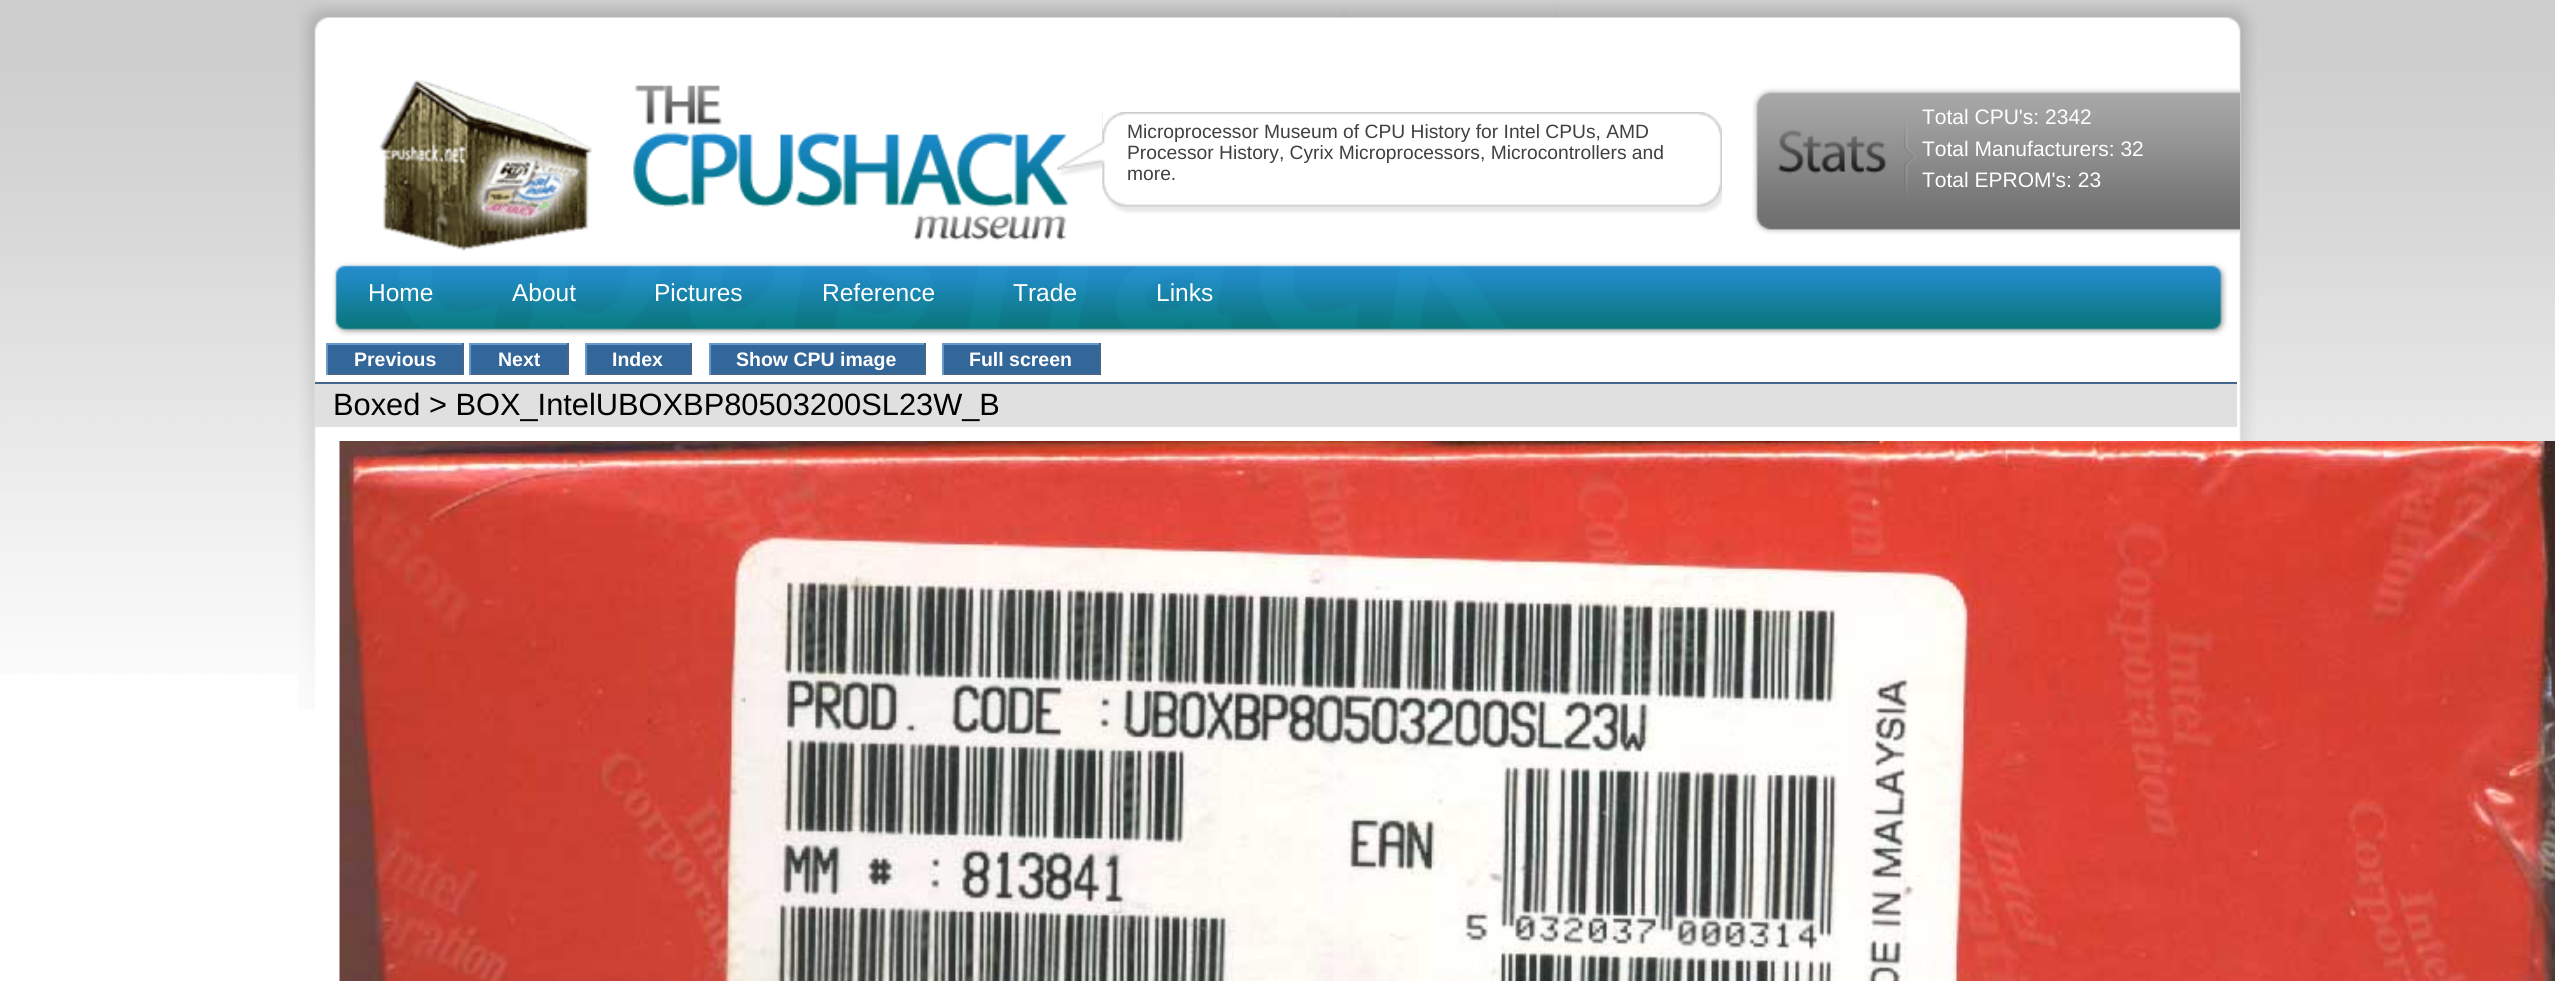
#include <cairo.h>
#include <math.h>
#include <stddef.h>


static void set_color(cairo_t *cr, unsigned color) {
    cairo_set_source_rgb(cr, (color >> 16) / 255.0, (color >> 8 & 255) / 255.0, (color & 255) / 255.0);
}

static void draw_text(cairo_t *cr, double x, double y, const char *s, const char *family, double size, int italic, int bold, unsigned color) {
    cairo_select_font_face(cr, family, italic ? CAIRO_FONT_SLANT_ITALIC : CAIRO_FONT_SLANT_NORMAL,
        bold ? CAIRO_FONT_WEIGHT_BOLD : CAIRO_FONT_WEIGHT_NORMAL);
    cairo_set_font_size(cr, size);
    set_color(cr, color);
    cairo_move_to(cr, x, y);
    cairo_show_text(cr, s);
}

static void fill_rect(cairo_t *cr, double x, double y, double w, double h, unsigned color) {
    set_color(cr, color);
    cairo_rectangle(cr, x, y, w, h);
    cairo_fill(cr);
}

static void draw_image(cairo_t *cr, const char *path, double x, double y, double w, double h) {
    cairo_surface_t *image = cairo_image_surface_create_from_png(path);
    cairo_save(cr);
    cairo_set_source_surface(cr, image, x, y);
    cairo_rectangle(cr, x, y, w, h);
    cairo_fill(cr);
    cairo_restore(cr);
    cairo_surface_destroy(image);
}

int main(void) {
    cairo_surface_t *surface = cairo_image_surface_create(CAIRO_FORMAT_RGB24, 2555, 981);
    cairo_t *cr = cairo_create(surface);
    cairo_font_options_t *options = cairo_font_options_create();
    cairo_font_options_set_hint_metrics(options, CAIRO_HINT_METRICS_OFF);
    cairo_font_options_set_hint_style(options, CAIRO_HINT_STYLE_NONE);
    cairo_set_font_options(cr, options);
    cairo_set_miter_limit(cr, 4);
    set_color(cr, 0xFFFFFF);
    cairo_paint(cr);
    draw_image(cr, "assets/img1.png", 0, 0, 2555, 674);
    draw_image(cr, "assets/img2.png", 298, 2, 1959, 708);
    draw_image(cr, "assets/img3.png", 379, 80, 213, 171);
    draw_image(cr, "assets/img4.png", 633, 85, 435, 156);
    draw_image(cr, "assets/img5.png", 1102, 112, 620, 101);
    draw_image(cr, "assets/img6.png", 1057, 112, 665, 72);
    draw_text(cr, 1127, 138, "Microprocessor Museum of CPU History for Intel CPUs, AMD", "Liberation Sans", 19.25, 0, 0, 0x404040);
    draw_text(cr, 1127, 159, "Processor History, Cyrix Microprocessors, Microcontrollers and", "Liberation Sans", 19.25, 0, 0, 0x404040);
    draw_text(cr, 1127, 180, "more.", "Liberation Sans", 19.25, 0, 0, 0x404040);
    draw_image(cr, "assets/img7.png", 1752, 87, 488, 147);
    draw_text(cr, 1922, 124, "Total CPU's: 2342", "Liberation Sans", 21, 0, 0, 0xFFFFFF);
    draw_text(cr, 1922, 156, "Total Manufacturers: 32", "Liberation Sans", 21, 0, 0, 0xFFFFFF);
    draw_text(cr, 1922, 187, "Total EPROM's: 23", "Liberation Sans", 21, 0, 0, 0xFFFFFF);
    draw_image(cr, "assets/img8.png", 332, 262, 1896, 74);
    draw_text(cr, 368, 301, "Home", "Liberation Sans", 24.5, 0, 0, 0xFFFFFF);
    draw_text(cr, 512, 301, "About", "Liberation Sans", 24.5, 0, 0, 0xFFFFFF);
    draw_text(cr, 654, 301, "Pictures", "Liberation Sans", 24.5, 0, 0, 0xFFFFFF);
    draw_text(cr, 822, 301, "Reference", "Liberation Sans", 24.5, 0, 0, 0xFFFFFF);
    draw_text(cr, 1013, 301, "Trade", "Liberation Sans", 24.5, 0, 0, 0xFFFFFF);
    draw_text(cr, 1156, 301, "Links", "Liberation Sans", 24.5, 0, 0, 0xFFFFFF);
    fill_rect(cr, 328, 345, 134, 28, 0x336699);
    draw_text(cr, 354, 366, "Previous", "Liberation Sans", 19.5, 0, 1, 0xFFFFFF);
    fill_rect(cr, 326, 343, 138, 2, 0x6699CC);
    fill_rect(cr, 462, 343, 2, 32, 0x446688);
    fill_rect(cr, 326, 373, 138, 2, 0x446688);
    fill_rect(cr, 326, 343, 2, 32, 0x6699CC);
    fill_rect(cr, 471, 345, 96, 28, 0x336699);
    draw_text(cr, 498, 366, "Next", "Liberation Sans", 19.5, 0, 1, 0xFFFFFF);
    fill_rect(cr, 469, 343, 100, 2, 0x6699CC);
    fill_rect(cr, 567, 343, 2, 32, 0x446688);
    fill_rect(cr, 469, 373, 100, 2, 0x446688);
    fill_rect(cr, 469, 343, 2, 32, 0x6699CC);
    fill_rect(cr, 587, 345, 103, 28, 0x336699);
    draw_text(cr, 612, 366, "Index", "Liberation Sans", 19.5, 0, 1, 0xFFFFFF);
    fill_rect(cr, 585, 343, 106, 2, 0x6699CC);
    fill_rect(cr, 690, 343, 2, 32, 0x446688);
    fill_rect(cr, 585, 373, 106, 2, 0x446688);
    fill_rect(cr, 585, 343, 2, 32, 0x6699CC);
    fill_rect(cr, 711, 345, 213, 28, 0x336699);
    draw_text(cr, 736, 366, "Show CPU image", "Liberation Sans", 19.5, 0, 1, 0xFFFFFF);
    fill_rect(cr, 709, 343, 217, 2, 0x6699CC);
    fill_rect(cr, 924, 343, 2, 32, 0x446688);
    fill_rect(cr, 709, 373, 217, 2, 0x446688);
    fill_rect(cr, 709, 343, 2, 32, 0x6699CC);
    fill_rect(cr, 944, 345, 155, 28, 0x336699);
    draw_text(cr, 969, 366, "Full screen", "Liberation Sans", 19.5, 0, 1, 0xFFFFFF);
    fill_rect(cr, 942, 343, 159, 2, 0x6699CC);
    fill_rect(cr, 1099, 343, 2, 32, 0x446688);
    fill_rect(cr, 942, 373, 159, 2, 0x446688);
    fill_rect(cr, 942, 343, 2, 32, 0x6699CC);
    fill_rect(cr, 315, 384, 1922, 43, 0xE0E0E0);
    fill_rect(cr, 315, 382, 1922, 2, 0x446688);
    draw_text(cr, 333, 415, "Boxed > BOX_IntelUBOXBP80503200SL23W_B", "Liberation Sans", 30.8, 0, 0, 0x000000);
    draw_image(cr, "assets/img9.png", 339, 441, 2216, 540);
    cairo_surface_write_to_png(surface, "output.png");
    cairo_font_options_destroy(options);
    cairo_destroy(cr);
    cairo_surface_destroy(surface);
    return 0;
}
